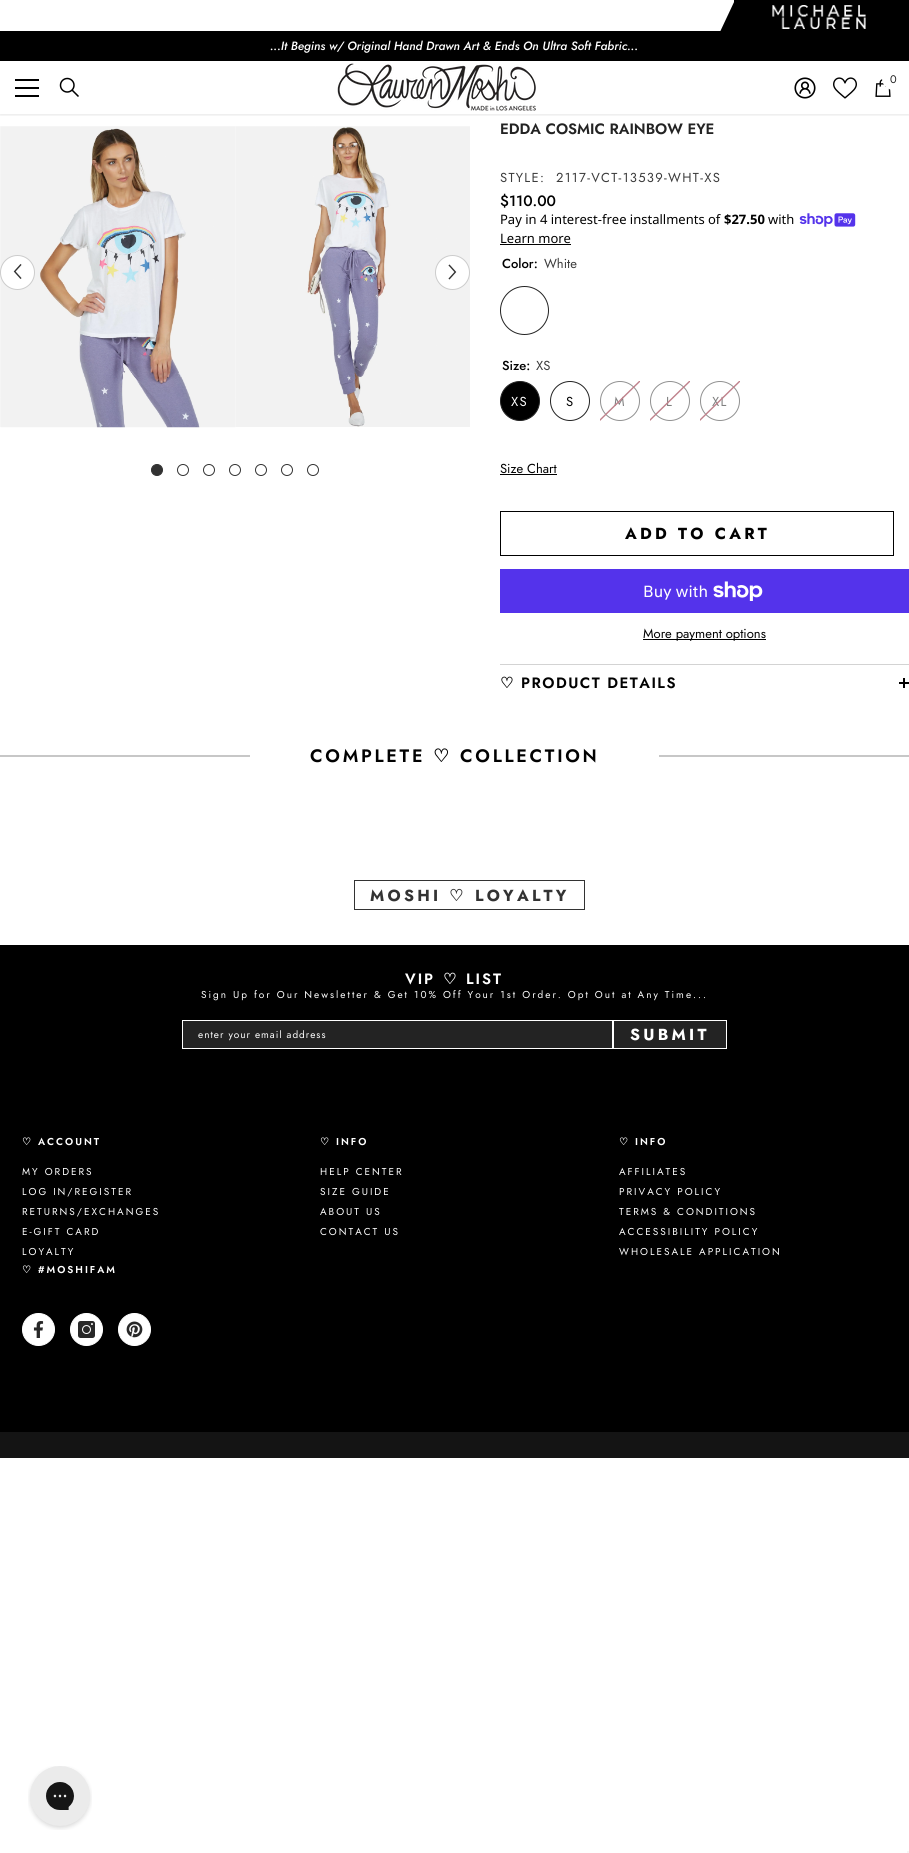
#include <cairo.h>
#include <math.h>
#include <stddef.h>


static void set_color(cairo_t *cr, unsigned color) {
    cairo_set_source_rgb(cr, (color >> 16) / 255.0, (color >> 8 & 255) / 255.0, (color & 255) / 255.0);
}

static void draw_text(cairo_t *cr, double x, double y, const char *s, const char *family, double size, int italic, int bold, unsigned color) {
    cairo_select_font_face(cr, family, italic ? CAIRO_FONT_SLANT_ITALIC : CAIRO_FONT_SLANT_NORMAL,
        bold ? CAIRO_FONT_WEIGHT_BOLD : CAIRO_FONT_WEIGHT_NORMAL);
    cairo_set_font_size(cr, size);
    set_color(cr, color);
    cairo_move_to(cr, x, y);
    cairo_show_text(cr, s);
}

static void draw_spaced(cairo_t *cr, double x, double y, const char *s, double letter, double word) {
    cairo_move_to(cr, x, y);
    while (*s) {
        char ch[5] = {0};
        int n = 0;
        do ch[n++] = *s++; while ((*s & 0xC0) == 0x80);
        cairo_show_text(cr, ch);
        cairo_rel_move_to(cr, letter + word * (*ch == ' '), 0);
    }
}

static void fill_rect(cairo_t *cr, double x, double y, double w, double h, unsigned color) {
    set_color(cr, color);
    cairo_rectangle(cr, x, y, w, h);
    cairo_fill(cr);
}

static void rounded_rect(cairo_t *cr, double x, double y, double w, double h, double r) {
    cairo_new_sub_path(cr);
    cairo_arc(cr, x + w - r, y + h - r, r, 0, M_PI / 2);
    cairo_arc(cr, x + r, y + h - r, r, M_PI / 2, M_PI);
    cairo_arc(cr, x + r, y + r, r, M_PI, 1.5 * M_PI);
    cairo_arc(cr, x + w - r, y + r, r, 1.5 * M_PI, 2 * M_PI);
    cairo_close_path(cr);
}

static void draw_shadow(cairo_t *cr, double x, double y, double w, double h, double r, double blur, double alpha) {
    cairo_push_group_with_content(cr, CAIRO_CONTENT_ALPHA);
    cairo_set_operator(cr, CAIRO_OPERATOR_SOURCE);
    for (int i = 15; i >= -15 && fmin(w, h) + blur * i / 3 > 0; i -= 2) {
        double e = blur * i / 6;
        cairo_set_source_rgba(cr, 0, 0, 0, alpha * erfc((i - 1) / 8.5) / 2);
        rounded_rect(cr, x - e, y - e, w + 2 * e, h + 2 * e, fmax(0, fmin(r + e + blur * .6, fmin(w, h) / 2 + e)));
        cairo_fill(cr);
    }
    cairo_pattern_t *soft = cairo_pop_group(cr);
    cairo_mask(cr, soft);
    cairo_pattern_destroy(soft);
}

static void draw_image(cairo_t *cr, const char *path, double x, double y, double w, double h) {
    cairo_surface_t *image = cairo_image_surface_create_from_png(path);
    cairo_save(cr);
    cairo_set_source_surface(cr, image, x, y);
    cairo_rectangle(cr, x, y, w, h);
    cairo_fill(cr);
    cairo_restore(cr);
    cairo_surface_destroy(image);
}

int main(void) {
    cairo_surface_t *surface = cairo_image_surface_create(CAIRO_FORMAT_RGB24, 909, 1853);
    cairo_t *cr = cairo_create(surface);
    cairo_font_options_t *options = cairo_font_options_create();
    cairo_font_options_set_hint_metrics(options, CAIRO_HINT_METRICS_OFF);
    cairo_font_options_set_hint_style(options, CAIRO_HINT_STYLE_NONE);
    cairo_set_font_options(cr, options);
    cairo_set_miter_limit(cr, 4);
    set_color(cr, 0xFFFFFF);
    cairo_paint(cr);
    fill_rect(cr, 734, 0, 175, 31, 0x000000);
    fill_rect(cr, 0, 31, 909, 30, 0x000000);
    cairo_new_path(cr);
    cairo_move_to(cr, 735, 0);
    cairo_line_to(cr, 765, 0);
    cairo_line_to(cr, 749, 34);
    cairo_line_to(cr, 719, 34);
    cairo_close_path(cr);
    cairo_fill(cr);
    draw_image(cr, "assets/img1.png", 772, 5, 94, 24);
    draw_text(cr, 270, 50, "...It Begins w/ Original Hand Drawn Art & Ends On Ultra Soft Fabric...", "Jost Medium", 12, 1, 0, 0xFFFFFF);
    cairo_save(cr);
    cairo_rectangle(cr, 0, 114, 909, 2);
    cairo_clip(cr);
    set_color(cr, 0x000000);
    draw_shadow(cr, 0, 62, 909, 53, 0, 1.5, 0.1);
    cairo_restore(cr);
    fill_rect(cr, 15, 87, 24, 2, 0x000000);
    fill_rect(cr, 15, 79, 24, 2, 0x000000);
    fill_rect(cr, 15, 95, 24, 2, 0x000000);
    draw_image(cr, "assets/img2.png", 59, 77, 20, 20);
    draw_image(cr, "assets/img3.png", 337, 63, 199, 48);
    draw_image(cr, "assets/img4.png", 794, 77, 22, 22);
    draw_image(cr, "assets/img5.png", 833, 77, 24, 22);
    draw_image(cr, "assets/img6.png", 875, 79, 16, 18);
    set_color(cr, 0xFFFFFF);
    cairo_arc(cr, 893.5, 78.5, 11.5, 0, 2 * M_PI);
    cairo_fill(cr);
    cairo_select_font_face(cr, "Jost", CAIRO_FONT_SLANT_NORMAL, CAIRO_FONT_WEIGHT_NORMAL);
    cairo_set_font_size(cr, 11);
    set_color(cr, 0x232323);
    draw_spaced(cr, 890, 83, "0", 1.3, 0);
    draw_image(cr, "assets/img7.png", 0, 126, 1, 301);
    draw_image(cr, "assets/img8.png", 0, 126, 236, 302);
    draw_image(cr, "assets/img9.png", 235, 126, 235, 301);
    set_color(cr, 0xFFFFFF);
    cairo_arc(cr, 17.5, 272.5, 17, 0, 2 * M_PI);
    cairo_fill_preserve(cr);
    set_color(cr, 0xCCCCCC);
    cairo_set_line_width(cr, 1);
    cairo_stroke(cr);
    draw_image(cr, "assets/img10.png", 13, 264, 9, 15);
    set_color(cr, 0xFFFFFF);
    cairo_arc(cr, 452.5, 272.5, 17, 0, 2 * M_PI);
    cairo_fill_preserve(cr);
    set_color(cr, 0xCCCCCC);
    cairo_stroke(cr);
    draw_image(cr, "assets/img11.png", 448, 264, 9, 16);
    set_color(cr, 0x323232);
    cairo_arc(cr, 157, 470, 5.5, 0, 2 * M_PI);
    cairo_fill_preserve(cr);
    cairo_stroke(cr);
    cairo_arc(cr, 183, 470, 5.5, 0, 2 * M_PI);
    cairo_stroke(cr);
    cairo_arc(cr, 209, 470, 5.5, 0, 2 * M_PI);
    cairo_stroke(cr);
    cairo_arc(cr, 235, 470, 5.5, 0, 2 * M_PI);
    cairo_stroke(cr);
    cairo_arc(cr, 261, 470, 5.5, 0, 2 * M_PI);
    cairo_stroke(cr);
    cairo_arc(cr, 287, 470, 5.5, 0, 2 * M_PI);
    cairo_stroke(cr);
    cairo_arc(cr, 313, 470, 5.5, 0, 2 * M_PI);
    cairo_stroke(cr);
    draw_text(cr, 500, 134, "EDDA COSMIC RAINBOW EYE", "Jost SemiBold", 15, 0, 0, 0x232323);
    cairo_select_font_face(cr, "Jost", CAIRO_FONT_SLANT_NORMAL, CAIRO_FONT_WEIGHT_NORMAL);
    cairo_set_font_size(cr, 13);
    set_color(cr, 0x3C3C3C);
    draw_spaced(cr, 500, 182, "STYLE:", 1.3, 0);
    draw_spaced(cr, 556, 182, "2117-VCT-13539-WHT-XS", 1.3, 0);
    draw_text(cr, 500, 206, "$110.00", "Jost Medium", 15, 0, 0, 0x010101);
    draw_text(cr, 500, 224, "Pay in 4 interest-free installments of", "Noto Sans", 13, 0, 0, 0x010101);
    draw_text(cr, 724, 224, "$27.50", "Noto Sans", 13, 0, 1, 0x010101);
    draw_text(cr, 768, 224, "with", "Noto Sans", 13, 0, 0, 0x010101);
    draw_image(cr, "assets/img12.png", 799, 213, 57, 14);
    draw_text(cr, 500, 243, "Learn more", "Noto Sans", 13, 0, 0, 0x010101);
    fill_rect(cr, 500, 244, 71, 1, 0x000000);
    draw_text(cr, 502, 268, "Color:", "Jost Medium", 13, 0, 0, 0x010101);
    draw_text(cr, 544, 268, "White", "Jost", 13, 0, 0, 0x3C3C3C);
    cairo_new_path(cr);
    cairo_arc(cr, 524.5, 310.5, 24, 0, 2 * M_PI);
    set_color(cr, 0x232323);
    cairo_stroke(cr);
    draw_text(cr, 502, 370, "Size:", "Jost Medium", 13, 0, 0, 0x010101);
    draw_text(cr, 536, 370, "XS", "Jost", 13, 0, 0, 0x3C3C3C);
    set_color(cr, 0x000000);
    cairo_new_path(cr);
    cairo_arc(cr, 520, 401, 19.5, 0, 2 * M_PI);
    cairo_fill_preserve(cr);
    set_color(cr, 0x232323);
    cairo_stroke(cr);
    set_color(cr, 0xFFFFFF);
    draw_spaced(cr, 511, 406, "XS", 1.3, 0);
    cairo_new_path(cr);
    cairo_arc(cr, 570, 401, 19.5, 0, 2 * M_PI);
    set_color(cr, 0x232323);
    cairo_stroke(cr);
    set_color(cr, 0x010101);
    draw_spaced(cr, 566, 406, "S", 1.3, 0);
    cairo_new_path(cr);
    cairo_arc(cr, 620, 401, 19.5, 0, 2 * M_PI);
    set_color(cr, 0x919191);
    cairo_stroke(cr);
    set_color(cr, 0x808080);
    draw_spaced(cr, 614, 406, "M", 1.3, 0);
    cairo_save(cr);
    cairo_rectangle(cr, 600, 381, 40, 40);
    cairo_clip(cr);
    set_color(cr, 0xBF818B);
    cairo_new_path(cr);
    cairo_move_to(cr, 598, 421);
    cairo_line_to(cr, 641, 379);
    cairo_line_to(cr, 642, 380);
    cairo_line_to(cr, 599, 422);
    cairo_close_path(cr);
    cairo_fill(cr);
    cairo_restore(cr);
    cairo_arc(cr, 670, 401, 19.5, 0, 2 * M_PI);
    set_color(cr, 0x919191);
    cairo_stroke(cr);
    set_color(cr, 0x808080);
    draw_spaced(cr, 666, 406, "L", 1.3, 0);
    cairo_save(cr);
    cairo_rectangle(cr, 650, 381, 40, 40);
    cairo_clip(cr);
    set_color(cr, 0xBF818B);
    cairo_new_path(cr);
    cairo_move_to(cr, 648, 421);
    cairo_line_to(cr, 691, 379);
    cairo_line_to(cr, 692, 380);
    cairo_line_to(cr, 649, 422);
    cairo_close_path(cr);
    cairo_fill(cr);
    cairo_restore(cr);
    cairo_arc(cr, 720, 401, 19.5, 0, 2 * M_PI);
    set_color(cr, 0x919191);
    cairo_stroke(cr);
    set_color(cr, 0x808080);
    draw_spaced(cr, 712, 406, "XL", 1.3, 0);
    cairo_save(cr);
    cairo_rectangle(cr, 700, 381, 40, 40);
    cairo_clip(cr);
    set_color(cr, 0xBF818B);
    cairo_new_path(cr);
    cairo_move_to(cr, 698, 421);
    cairo_line_to(cr, 741, 379);
    cairo_line_to(cr, 742, 380);
    cairo_line_to(cr, 699, 422);
    cairo_close_path(cr);
    cairo_fill(cr);
    cairo_restore(cr);
    draw_text(cr, 500, 473, "Size Chart", "Jost", 13, 0, 0, 0x010101);
    fill_rect(cr, 500, 474, 57, 1, 0x000000);
    cairo_rectangle(cr, 500.5, 511.5, 393, 44);
    cairo_stroke(cr);
    cairo_select_font_face(cr, "Jost", CAIRO_FONT_SLANT_NORMAL, CAIRO_FONT_WEIGHT_BOLD);
    cairo_set_font_size(cr, 16);
    set_color(cr, 0x010101);
    draw_spaced(cr, 625, 539, "ADD TO CART", 3.25, 0);
    fill_rect(cr, 500, 569, 409, 44, 0x5433EB);
    draw_text(cr, 643, 597, "Buy with", "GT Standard", 16, 0, 0, 0xFFFFFF);
    draw_image(cr, "assets/img13.png", 713, 581, 50, 20);
    fill_rect(cr, 643, 639, 123, 1, 0x000000);
    draw_text(cr, 643, 638, "More payment options", "Jost", 13, 0, 0, 0x010101);
    fill_rect(cr, 500, 664, 409, 1, 0xD3D3D3);
    cairo_select_font_face(cr, "DejaVu Sans", CAIRO_FONT_SLANT_NORMAL, CAIRO_FONT_WEIGHT_BOLD);
    cairo_set_font_size(cr, 15);
    set_color(cr, 0x010101);
    draw_spaced(cr, 500, 688, "♡", 1.5, 0);
    cairo_select_font_face(cr, "Jost SemiBold", CAIRO_FONT_SLANT_NORMAL, CAIRO_FONT_WEIGHT_NORMAL);
    draw_spaced(cr, 521, 688, "PRODUCT DETAILS", 1.5, 0);
    fill_rect(cr, 903, 678, 2, 10, 0x000000);
    fill_rect(cr, 899, 682, 10, 2, 0x000000);
    fill_rect(cr, 0, 755, 909, 2, 0xC7C7C7);
    fill_rect(cr, 250, 755, 409, 2, 0xFFFFFF);
    cairo_set_font_size(cr, 18);
    set_color(cr, 0x010101);
    draw_spaced(cr, 310, 762, "COMPLETE", 2.75, 0);
    cairo_select_font_face(cr, "DejaVu Sans", CAIRO_FONT_SLANT_NORMAL, CAIRO_FONT_WEIGHT_BOLD);
    draw_spaced(cr, 433, 762, "♡", 2.75, 0);
    cairo_select_font_face(cr, "Jost SemiBold", CAIRO_FONT_SLANT_NORMAL, CAIRO_FONT_WEIGHT_NORMAL);
    draw_spaced(cr, 460, 762, "COLLECTION", 2.75, 0);
    cairo_rectangle(cr, 354.5, 880.5, 230, 29);
    set_color(cr, 0x333333);
    cairo_stroke(cr);
    cairo_select_font_face(cr, "Jost", CAIRO_FONT_SLANT_NORMAL, CAIRO_FONT_WEIGHT_BOLD);
    cairo_set_font_size(cr, 16);
    draw_spaced(cr, 370, 901, "MOSHI", 3.25, 0);
    cairo_select_font_face(cr, "DejaVu Sans", CAIRO_FONT_SLANT_NORMAL, CAIRO_FONT_WEIGHT_BOLD);
    draw_spaced(cr, 449, 901, "♡", 3.25, 0);
    cairo_select_font_face(cr, "Jost", CAIRO_FONT_SLANT_NORMAL, CAIRO_FONT_WEIGHT_BOLD);
    draw_spaced(cr, 475, 901, "LOYALTY", 3.25, 0);
    fill_rect(cr, 0, 945, 909, 487, 0x000000);
    cairo_select_font_face(cr, "Jost SemiBold", CAIRO_FONT_SLANT_NORMAL, CAIRO_FONT_WEIGHT_NORMAL);
    cairo_set_font_size(cr, 15);
    set_color(cr, 0xFFFFFF);
    draw_spaced(cr, 405, 984, "VIP", 2, 0);
    cairo_select_font_face(cr, "DejaVu Sans", CAIRO_FONT_SLANT_NORMAL, CAIRO_FONT_WEIGHT_BOLD);
    draw_spaced(cr, 443, 984, "♡", 2, 0);
    cairo_select_font_face(cr, "Jost SemiBold", CAIRO_FONT_SLANT_NORMAL, CAIRO_FONT_WEIGHT_NORMAL);
    draw_spaced(cr, 466, 984, "LIST", 2, 0);
    cairo_select_font_face(cr, "Jost", CAIRO_FONT_SLANT_NORMAL, CAIRO_FONT_WEIGHT_NORMAL);
    cairo_set_font_size(cr, 10);
    draw_spaced(cr, 201, 998, "Sign Up for Our Newsletter & Get 10% Off Your 1st Order. Opt Out at Any Time...", 2, 0);
    set_color(cr, 0x232323);
    cairo_rectangle(cr, 182.5, 1020.5, 430, 28);
    cairo_fill_preserve(cr);
    set_color(cr, 0xFFFFFF);
    cairo_stroke(cr);
    draw_spaced(cr, 198, 1038, "enter your email address", 1, 0);
    set_color(cr, 0x232323);
    cairo_rectangle(cr, 613.5, 1020.5, 113, 28);
    cairo_fill_preserve(cr);
    set_color(cr, 0xFFFFFF);
    cairo_stroke(cr);
    cairo_select_font_face(cr, "Jost", CAIRO_FONT_SLANT_NORMAL, CAIRO_FONT_WEIGHT_BOLD);
    cairo_set_font_size(cr, 16);
    draw_spaced(cr, 630, 1040, "SUBMIT", 3.25, 0);
    cairo_select_font_face(cr, "DejaVu Sans", CAIRO_FONT_SLANT_NORMAL, CAIRO_FONT_WEIGHT_BOLD);
    cairo_set_font_size(cr, 10);
    draw_spaced(cr, 22, 1145, "♡", 2, 0);
    cairo_select_font_face(cr, "Jost SemiBold", CAIRO_FONT_SLANT_NORMAL, CAIRO_FONT_WEIGHT_NORMAL);
    draw_spaced(cr, 38, 1145, "ACCOUNT", 2, 0);
    cairo_select_font_face(cr, "Jost", CAIRO_FONT_SLANT_NORMAL, CAIRO_FONT_WEIGHT_NORMAL);
    draw_spaced(cr, 22, 1175, "MY ORDERS", 2, 0);
    draw_spaced(cr, 22, 1195, "LOG IN/REGISTER", 2, 0);
    draw_spaced(cr, 22, 1215, "RETURNS/EXCHANGES", 2, 0);
    draw_spaced(cr, 22, 1235, "E-GIFT CARD", 2, 0);
    draw_spaced(cr, 22, 1255, "LOYALTY", 2, 0);
    cairo_select_font_face(cr, "DejaVu Sans", CAIRO_FONT_SLANT_NORMAL, CAIRO_FONT_WEIGHT_BOLD);
    draw_spaced(cr, 320, 1145, "♡", 2, 0);
    cairo_select_font_face(cr, "Jost SemiBold", CAIRO_FONT_SLANT_NORMAL, CAIRO_FONT_WEIGHT_NORMAL);
    draw_spaced(cr, 336, 1145, "INFO", 2, 0);
    cairo_select_font_face(cr, "Jost", CAIRO_FONT_SLANT_NORMAL, CAIRO_FONT_WEIGHT_NORMAL);
    draw_spaced(cr, 320, 1175, "HELP CENTER", 2, 0);
    draw_spaced(cr, 320, 1195, "SIZE GUIDE", 2, 0);
    draw_spaced(cr, 320, 1215, "ABOUT US", 2, 0);
    draw_spaced(cr, 320, 1235, "CONTACT US", 2, 0);
    cairo_select_font_face(cr, "DejaVu Sans", CAIRO_FONT_SLANT_NORMAL, CAIRO_FONT_WEIGHT_BOLD);
    draw_spaced(cr, 619, 1145, "♡", 2, 0);
    cairo_select_font_face(cr, "Jost SemiBold", CAIRO_FONT_SLANT_NORMAL, CAIRO_FONT_WEIGHT_NORMAL);
    draw_spaced(cr, 635, 1145, "INFO", 2, 0);
    cairo_select_font_face(cr, "Jost", CAIRO_FONT_SLANT_NORMAL, CAIRO_FONT_WEIGHT_NORMAL);
    draw_spaced(cr, 619, 1175, "AFFILIATES", 2, 0);
    draw_spaced(cr, 619, 1195, "PRIVACY POLICY", 2, 0);
    draw_spaced(cr, 619, 1215, "TERMS & CONDITIONS", 2, 0);
    draw_spaced(cr, 619, 1235, "ACCESSIBILITY POLICY", 2, 0);
    draw_spaced(cr, 619, 1255, "WHOLESALE APPLICATION", 2, 0);
    cairo_select_font_face(cr, "DejaVu Sans", CAIRO_FONT_SLANT_NORMAL, CAIRO_FONT_WEIGHT_BOLD);
    draw_spaced(cr, 22, 1273, "♡", 2, 0);
    cairo_select_font_face(cr, "Jost SemiBold", CAIRO_FONT_SLANT_NORMAL, CAIRO_FONT_WEIGHT_NORMAL);
    draw_spaced(cr, 38, 1273, "#MOSHIFAM", 2, 0);
    cairo_new_path(cr);
    cairo_arc(cr, 38.5, 1329.5, 16, 0, 2 * M_PI);
    cairo_fill_preserve(cr);
    cairo_stroke(cr);
    draw_image(cr, "assets/img14.png", 33, 1321, 11, 17);
    cairo_arc(cr, 86.5, 1329.5, 16, 0, 2 * M_PI);
    cairo_fill_preserve(cr);
    cairo_stroke(cr);
    draw_image(cr, "assets/img15.png", 78, 1321, 17, 17);
    cairo_arc(cr, 134.5, 1329.5, 16, 0, 2 * M_PI);
    cairo_fill_preserve(cr);
    cairo_stroke(cr);
    draw_image(cr, "assets/img16.png", 126, 1321, 17, 17);
    fill_rect(cr, 0, 1432, 909, 26, 0x141414);
    draw_image(cr, "assets/img17.png", 28, 1766, 64, 64);
    fill_rect(cr, 907, 1851, 2, 2, 0xF5F5F5);
    cairo_surface_write_to_png(surface, "output.png");
    cairo_font_options_destroy(options);
    cairo_destroy(cr);
    cairo_surface_destroy(surface);
    return 0;
}
